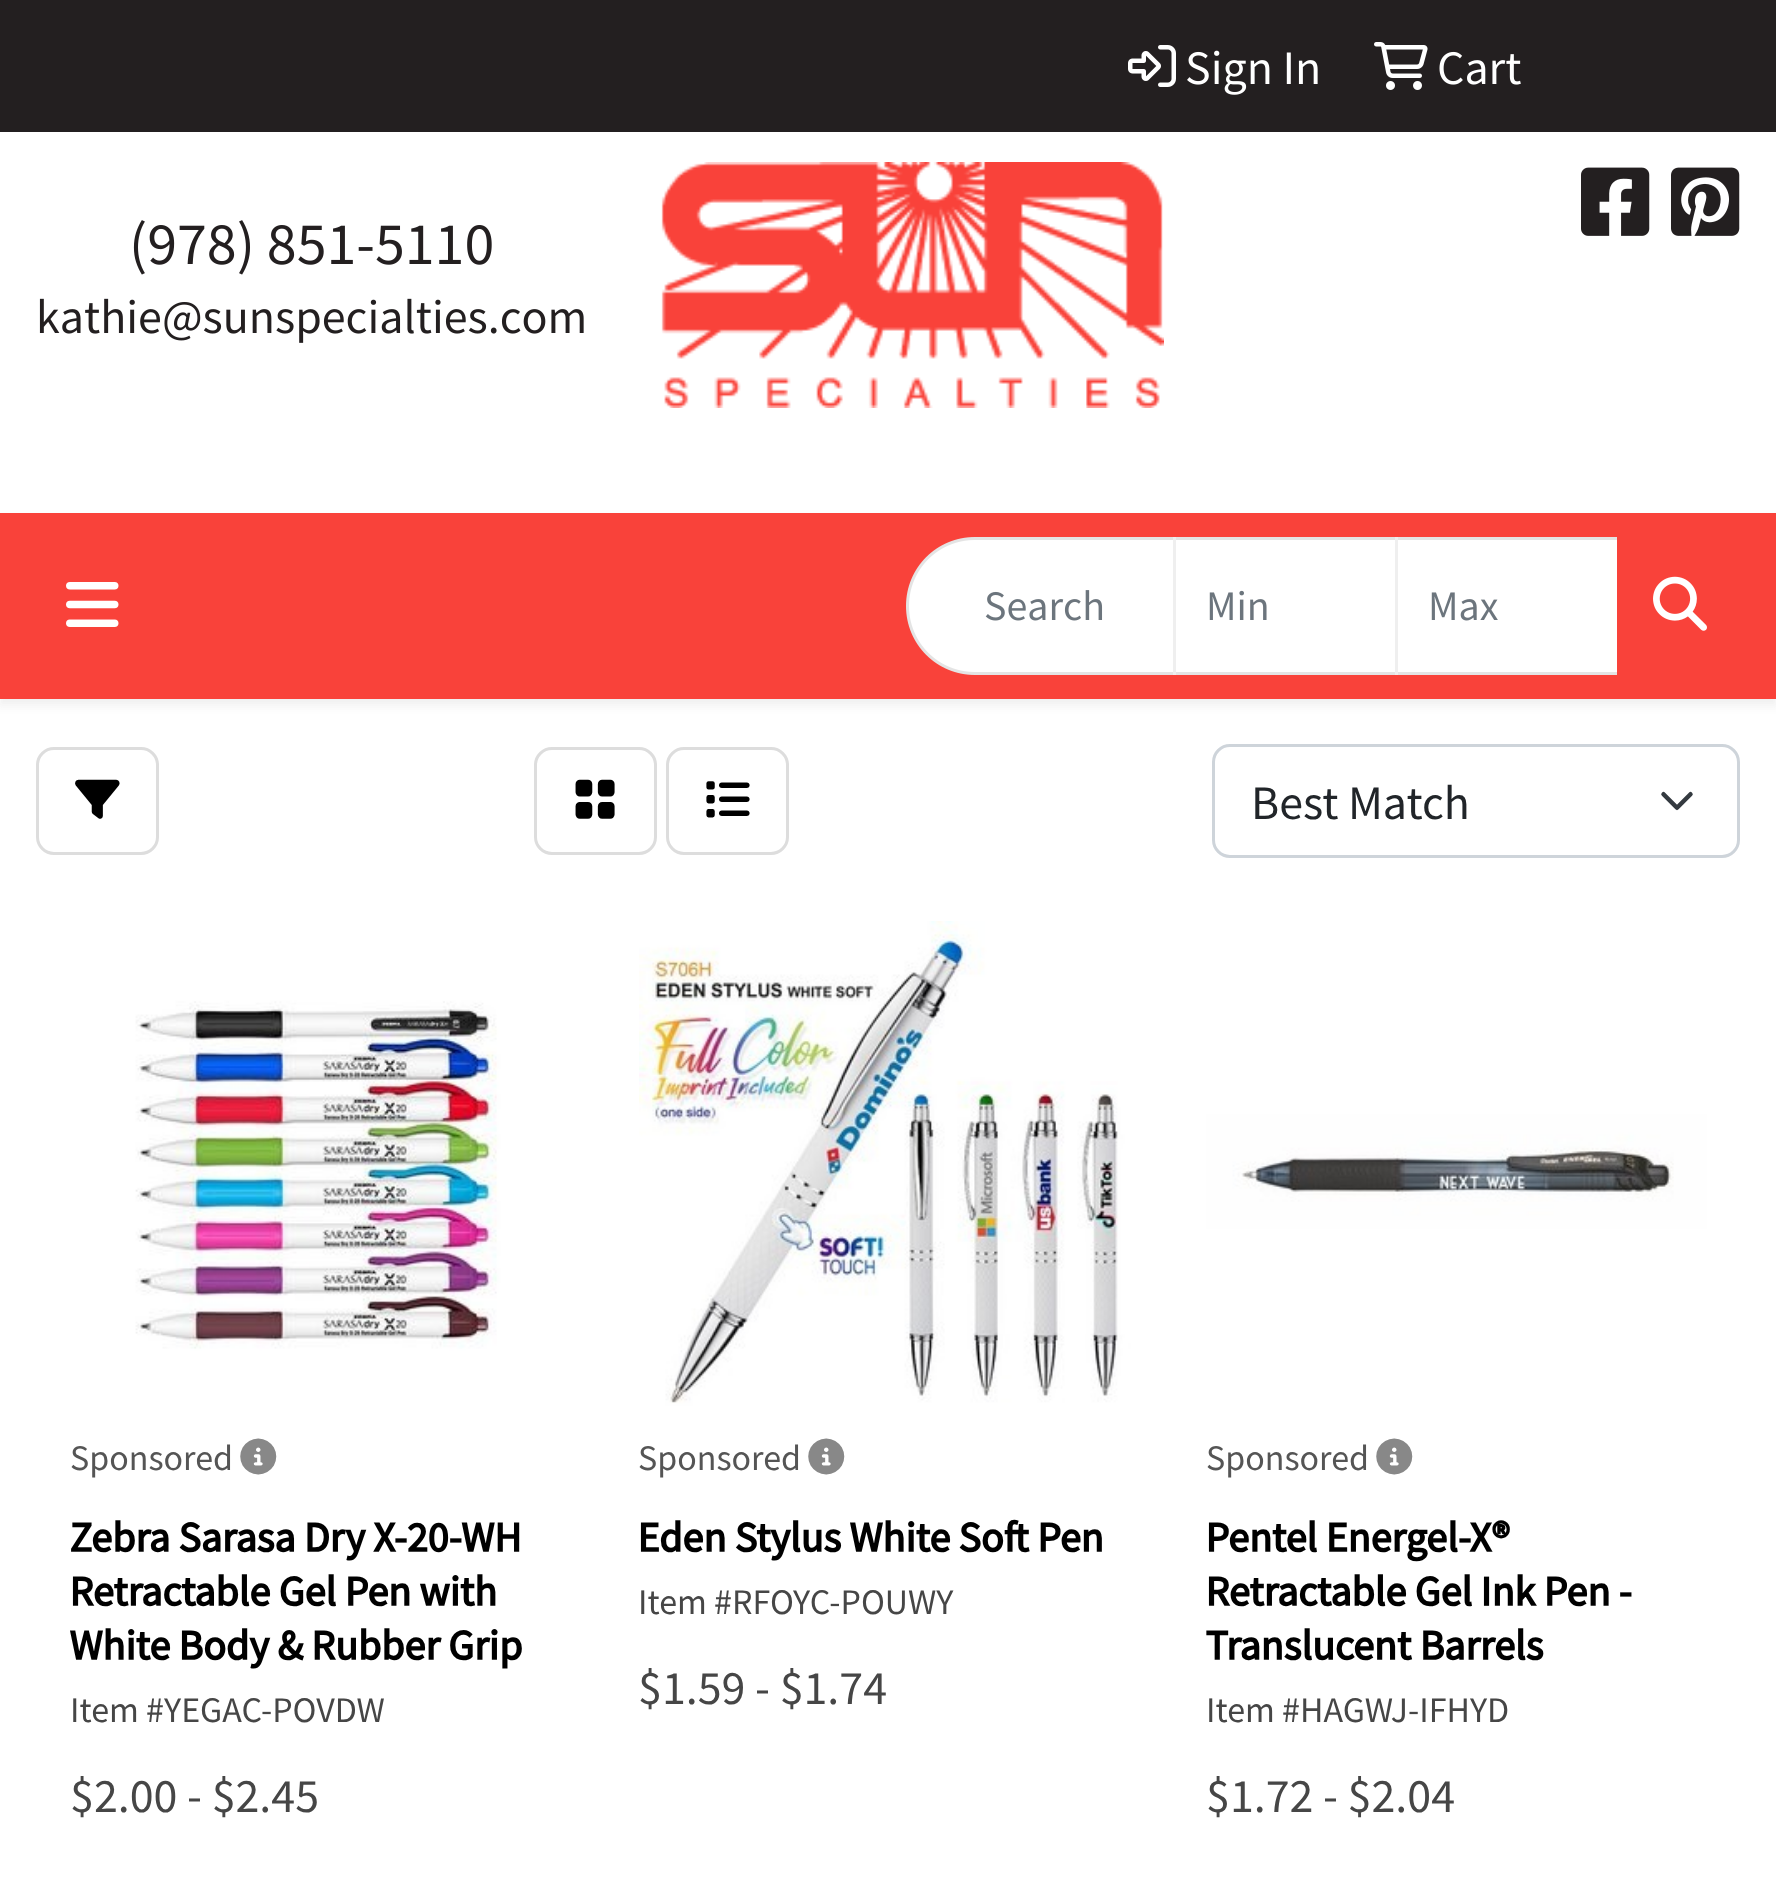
#include <cairo.h>
#include <math.h>
#include <stddef.h>


static void set_color(cairo_t *cr, unsigned color) {
    cairo_set_source_rgb(cr, (color >> 16) / 255.0, (color >> 8 & 255) / 255.0, (color & 255) / 255.0);
}

static void draw_text(cairo_t *cr, double x, double y, const char *s, const char *family, double size, int italic, int bold, unsigned color) {
    cairo_select_font_face(cr, family, italic ? CAIRO_FONT_SLANT_ITALIC : CAIRO_FONT_SLANT_NORMAL,
        bold ? CAIRO_FONT_WEIGHT_BOLD : CAIRO_FONT_WEIGHT_NORMAL);
    cairo_set_font_size(cr, size);
    set_color(cr, color);
    cairo_move_to(cr, x, y);
    cairo_show_text(cr, s);
}

static void fill_rect(cairo_t *cr, double x, double y, double w, double h, unsigned color) {
    set_color(cr, color);
    cairo_rectangle(cr, x, y, w, h);
    cairo_fill(cr);
}

static void rounded_rect(cairo_t *cr, double x, double y, double w, double h, double r) {
    cairo_new_sub_path(cr);
    cairo_arc(cr, x + w - r, y + h - r, r, 0, M_PI / 2);
    cairo_arc(cr, x + r, y + h - r, r, M_PI / 2, M_PI);
    cairo_arc(cr, x + r, y + r, r, M_PI, 1.5 * M_PI);
    cairo_arc(cr, x + w - r, y + r, r, 1.5 * M_PI, 2 * M_PI);
    cairo_close_path(cr);
}

static void draw_shadow(cairo_t *cr, double x, double y, double w, double h, double r, double blur, double alpha) {
    cairo_push_group_with_content(cr, CAIRO_CONTENT_ALPHA);
    cairo_set_operator(cr, CAIRO_OPERATOR_SOURCE);
    for (int i = 15; i >= -15 && fmin(w, h) + blur * i / 3 > 0; i -= 2) {
        double e = blur * i / 6;
        cairo_set_source_rgba(cr, 0, 0, 0, alpha * erfc((i - 1) / 8.5) / 2);
        rounded_rect(cr, x - e, y - e, w + 2 * e, h + 2 * e, fmax(0, fmin(r + e + blur * .6, fmin(w, h) / 2 + e)));
        cairo_fill(cr);
    }
    cairo_pattern_t *soft = cairo_pop_group(cr);
    cairo_mask(cr, soft);
    cairo_pattern_destroy(soft);
}

static void draw_image(cairo_t *cr, const char *path, double x, double y, double w, double h) {
    cairo_surface_t *image = cairo_image_surface_create_from_png(path);
    cairo_save(cr);
    cairo_set_source_surface(cr, image, x, y);
    cairo_rectangle(cr, x, y, w, h);
    cairo_fill(cr);
    cairo_restore(cr);
    cairo_surface_destroy(image);
}

int main(void) {
    cairo_surface_t *surface = cairo_image_surface_create(CAIRO_FORMAT_RGB24, 1776, 1892);
    cairo_t *cr = cairo_create(surface);
    cairo_font_options_t *options = cairo_font_options_create();
    cairo_font_options_set_hint_metrics(options, CAIRO_HINT_METRICS_OFF);
    cairo_font_options_set_hint_style(options, CAIRO_HINT_STYLE_NONE);
    cairo_set_font_options(cr, options);
    cairo_set_miter_limit(cr, 4);
    set_color(cr, 0xFFFFFF);
    cairo_paint(cr);
    fill_rect(cr, 0, 0, 1776, 132, 0x231F20);
    draw_image(cr, "assets/img1.png", 1128, 45, 48, 42);
    draw_text(cr, 1185, 84, "Sign In", "Source Sans Pro", 48, 0, 0, 0xFFFFFF);
    draw_image(cr, "assets/img2.png", 1374, 42, 54, 48);
    draw_text(cr, 1437, 84, "Cart", "Source Sans Pro", 48, 0, 0, 0xFFFFFF);
    draw_image(cr, "assets/img3.png", 661, 162, 503, 246);
    draw_image(cr, "assets/img4.png", 1581, 167, 69, 69);
    draw_image(cr, "assets/img5.png", 1671, 167, 69, 69);
    draw_text(cr, 129, 264, "(978) 851-5110", "Source Sans Pro", 60, 0, 0, 0x231F20);
    draw_text(cr, 36, 333, "kathie@sunspecialties.com", "Source Sans Pro", 48, 0, 0, 0x231F20);
    set_color(cr, 0x000000);
    draw_shadow(cr, 0, 519, 1776, 186, 0, 6, 0.07);
    fill_rect(cr, 0, 513, 1776, 186, 0xF9423A);
    draw_image(cr, "assets/img6.png", 66, 582, 53, 45);
    set_color(cr, 0xFFFFFF);
    cairo_new_path(cr);
    cairo_move_to(cr, 975, 538.5);
    cairo_line_to(cr, 1174.5, 538.5);
    cairo_line_to(cr, 1174.5, 673.5);
    cairo_line_to(cr, 975, 673.5);
    cairo_curve_to(cr, 937.5, 673.5, 907.5, 643.5, 907.5, 606);
    cairo_curve_to(cr, 907.5, 568.5, 937.5, 538.5, 975, 538.5);
    cairo_close_path(cr);
    cairo_fill_preserve(cr);
    set_color(cr, 0xE4E4E4);
    cairo_set_line_width(cr, 3);
    cairo_stroke(cr);
    draw_text(cr, 984, 620, "Search", "Source Sans Pro", 42, 0, 0, 0x6C757D);
    fill_rect(cr, 1176, 540, 219, 132, 0xFFFFFF);
    fill_rect(cr, 1173, 537, 447, 3, 0xE4E4E4);
    fill_rect(cr, 1173, 672, 447, 3, 0xE4E4E4);
    fill_rect(cr, 1173, 537, 3, 138, 0xEFEFEF);
    draw_text(cr, 1206, 620, "Min", "Source Sans Pro", 42, 0, 0, 0x6C757D);
    fill_rect(cr, 1398, 540, 219, 132, 0xFFFFFF);
    fill_rect(cr, 1395, 537, 3, 138, 0xEFEFEF);
    draw_text(cr, 1428, 620, "Max", "Source Sans Pro", 42, 0, 0, 0x6C757D);
    set_color(cr, 0xF9423A);
    cairo_set_fill_rule(cr, CAIRO_FILL_RULE_EVEN_ODD);
    cairo_new_path(cr);
    cairo_move_to(cr, 1617, 537);
    cairo_line_to(cr, 1677, 537);
    cairo_curve_to(cr, 1715, 537, 1746, 568, 1746, 606);
    cairo_curve_to(cr, 1746, 644, 1715, 675, 1677, 675);
    cairo_line_to(cr, 1617, 675);
    cairo_close_path(cr);
    cairo_move_to(cr, 1617, 540);
    cairo_line_to(cr, 1677, 540);
    cairo_curve_to(cr, 1713, 540, 1743, 570, 1743, 606);
    cairo_curve_to(cr, 1743, 642, 1713, 672, 1677, 672);
    cairo_line_to(cr, 1617, 672);
    cairo_close_path(cr);
    cairo_fill(cr);
    draw_image(cr, "assets/img7.png", 1653, 576, 54, 55);
    draw_image(cr, "assets/img8.png", 36, 744, 1704, 1074);
    cairo_surface_write_to_png(surface, "output.png");
    cairo_font_options_destroy(options);
    cairo_destroy(cr);
    cairo_surface_destroy(surface);
    return 0;
}
